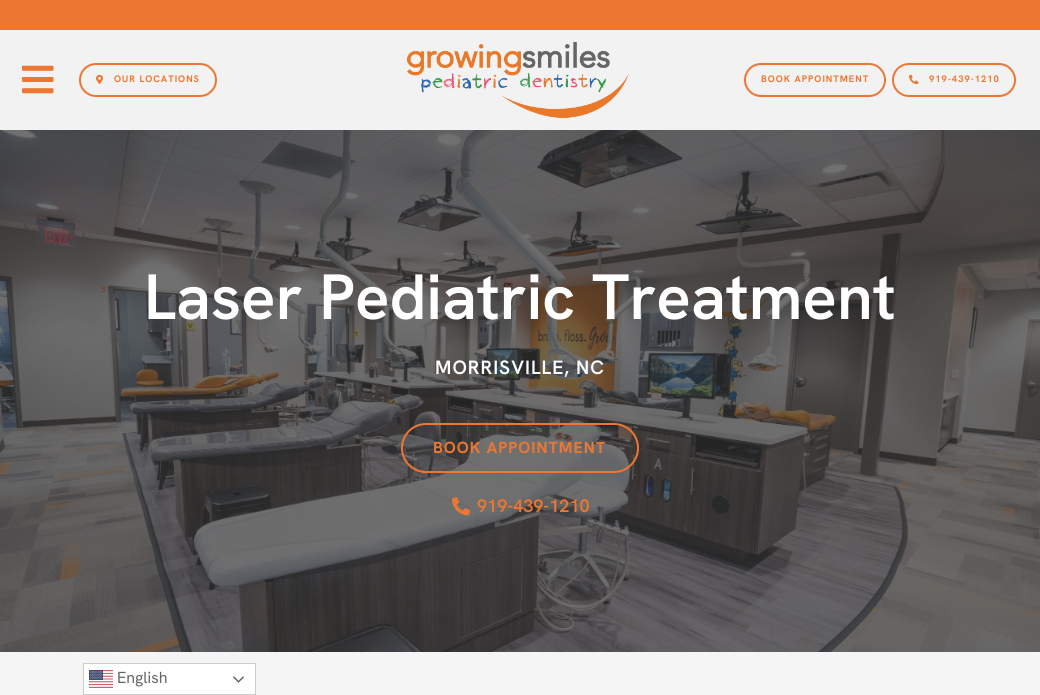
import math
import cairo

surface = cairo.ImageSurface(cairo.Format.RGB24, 1040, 695)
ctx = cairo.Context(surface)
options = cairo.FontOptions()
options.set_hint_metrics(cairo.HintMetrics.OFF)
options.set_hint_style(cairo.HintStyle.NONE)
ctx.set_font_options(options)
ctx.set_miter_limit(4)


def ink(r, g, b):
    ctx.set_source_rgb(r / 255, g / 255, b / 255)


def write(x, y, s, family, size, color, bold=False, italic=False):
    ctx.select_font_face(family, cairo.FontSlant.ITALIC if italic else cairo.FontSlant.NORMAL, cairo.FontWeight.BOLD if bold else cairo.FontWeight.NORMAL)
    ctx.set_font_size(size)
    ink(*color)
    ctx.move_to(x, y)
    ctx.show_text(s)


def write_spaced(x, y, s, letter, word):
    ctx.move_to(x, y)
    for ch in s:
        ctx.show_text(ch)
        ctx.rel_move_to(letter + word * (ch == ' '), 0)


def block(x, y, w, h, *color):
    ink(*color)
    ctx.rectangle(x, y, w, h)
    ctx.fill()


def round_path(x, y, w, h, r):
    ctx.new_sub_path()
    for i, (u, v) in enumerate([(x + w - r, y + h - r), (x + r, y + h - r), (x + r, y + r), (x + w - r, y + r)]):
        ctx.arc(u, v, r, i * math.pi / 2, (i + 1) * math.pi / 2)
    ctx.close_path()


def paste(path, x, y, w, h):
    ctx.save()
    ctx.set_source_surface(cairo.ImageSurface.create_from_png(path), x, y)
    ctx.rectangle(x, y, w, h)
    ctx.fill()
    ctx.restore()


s1 = dict(family="Hanken Grotesk SemiBold", size=64, color=(255, 255, 255))
s2 = dict(family="Hanken Grotesk SemiBold", size=18, color=(237, 119, 50))
s3 = dict(family="Hanken Grotesk", size=16, color=(102, 102, 102))

ink(245, 245, 245)
ctx.paint()
block(0, 0, 1040, 30, 237, 119, 50)
block(0, 30, 1040, 100, 242, 242, 242)
paste("pic1.png", 22, 65, 32, 29)
round_path(80, 64, 136, 32, 16)
ink(237, 119, 50)
ctx.stroke()
paste("pic2.png", 96, 74, 7, 11)
ctx.select_font_face("Hanken Grotesk", cairo.FontSlant.NORMAL, cairo.FontWeight.BOLD)
ctx.set_font_size(9.4)
write_spaced(114, 82, "OUR LOCATIONS", 1, 0)
paste("pic3.png", 406, 41, 223, 78)
round_path(745, 64, 140, 32, 16)
ctx.stroke()
write_spaced(761, 82, "BOOK APPOINTMENT", 1, 0)
round_path(893, 64, 122, 32, 16)
ctx.stroke()
paste("pic4.png", 909, 74, 10, 11)
write_spaced(929, 82, "919-439-1210", 1, 0)
paste("pic5.png", 0, 130, 1040, 522)
write(144, 319, "Laser Pediatric Treatment", **s1)
ctx.set_font_size(19.25)
write_spaced(435, 374, "MORRISVILLE, NC", 1, 0)
round_path(402, 424, 236, 48, 24)
ink(237, 119, 50)
ctx.stroke()
ctx.select_font_face("Hanken Grotesk", cairo.FontSlant.NORMAL, cairo.FontWeight.BOLD)
ctx.set_font_size(16)
write_spaced(433, 453, "BOOK APPOINTMENT", 1, 0)
paste("pic6.png", 452, 497, 18, 19)
write(477, 512, "919-439-1210", **s2)
ink(255, 255, 255)
ctx.rectangle(83.5, 663.5, 172, 31)
ctx.fill_preserve()
ink(204, 204, 204)
ctx.set_line_width(1)
ctx.stroke()
paste("pic7.png", 89, 670, 24, 18)
write(117, 683, "English", **s3)
paste("pic8.png", 233, 676, 11, 7)
surface.write_to_png("screenshot.png")
